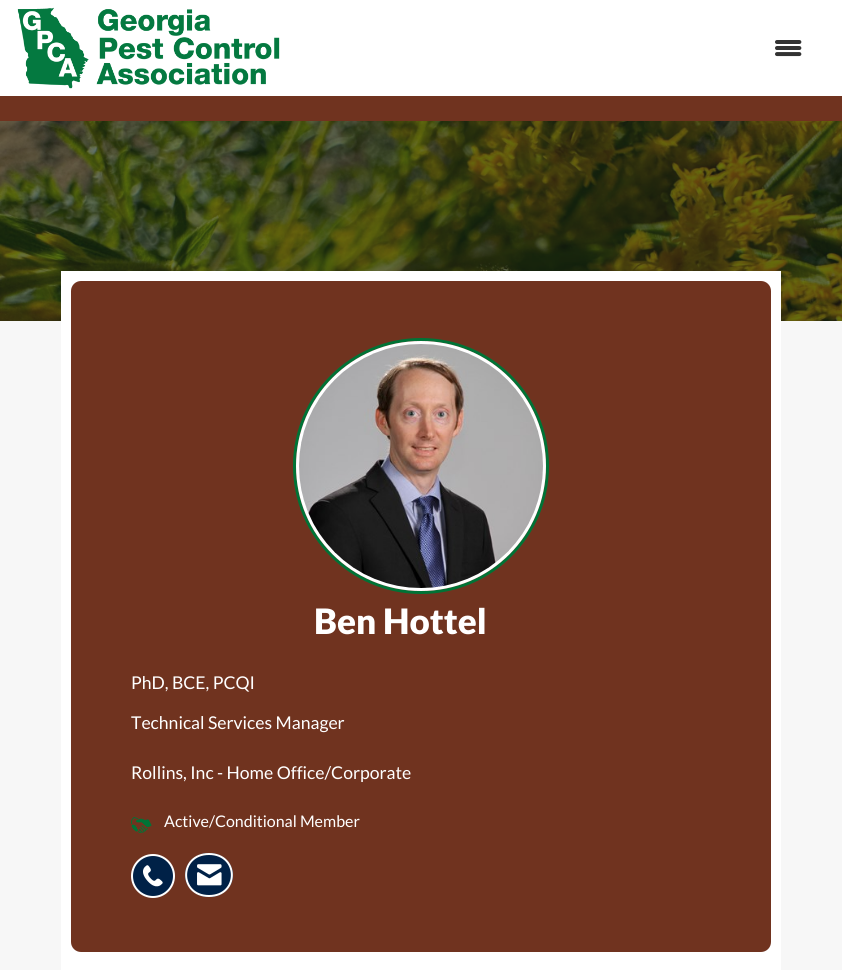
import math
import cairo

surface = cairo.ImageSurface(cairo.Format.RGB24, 842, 970)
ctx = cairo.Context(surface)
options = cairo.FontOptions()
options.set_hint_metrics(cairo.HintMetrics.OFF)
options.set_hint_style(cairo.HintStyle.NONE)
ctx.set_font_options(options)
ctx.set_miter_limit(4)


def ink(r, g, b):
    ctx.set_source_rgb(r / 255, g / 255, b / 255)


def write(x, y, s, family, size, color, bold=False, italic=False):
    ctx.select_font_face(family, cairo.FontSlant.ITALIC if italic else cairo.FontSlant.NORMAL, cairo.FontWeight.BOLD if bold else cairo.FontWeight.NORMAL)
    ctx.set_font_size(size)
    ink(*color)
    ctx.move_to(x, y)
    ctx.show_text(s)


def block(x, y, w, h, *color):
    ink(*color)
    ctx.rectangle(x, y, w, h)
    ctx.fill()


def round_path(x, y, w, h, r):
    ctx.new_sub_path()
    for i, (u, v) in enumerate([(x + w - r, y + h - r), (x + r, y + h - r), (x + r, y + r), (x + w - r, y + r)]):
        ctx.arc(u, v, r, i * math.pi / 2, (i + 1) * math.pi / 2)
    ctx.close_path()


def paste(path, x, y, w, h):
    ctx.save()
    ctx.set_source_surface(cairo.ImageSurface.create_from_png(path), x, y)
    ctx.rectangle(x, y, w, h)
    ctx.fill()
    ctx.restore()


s1 = dict(family="Lato Black", size=35, color=(255, 255, 255))
s2 = dict(family="Lato", size=17.6, color=(255, 255, 255))
s3 = dict(family="Lato", size=16, color=(255, 255, 255))

ink(247, 247, 247)
ctx.paint()
block(0, 0, 842, 96, 255, 255, 255)
paste("pic1.png", 17, 7, 263, 82)
paste("pic2.png", 775, 40, 27, 17)
block(0, 96, 842, 25, 112, 51, 31)
paste("pic3.png", 0, 121, 842, 200)
block(61, 271, 720, 699, 255, 255, 255)
ink(112, 51, 31)
round_path(71, 281, 700, 671, 10)
ctx.fill()
ctx.arc(421, 466, 126.5, 0, 2 * math.pi)
ink(0, 115, 54)
ctx.set_line_width(3)
ctx.stroke()
ink(255, 255, 255)
ctx.arc(421, 466, 123.5, 0, 2 * math.pi)
ctx.fill_preserve()
ctx.stroke()
paste("pic4.png", 299, 344, 244, 244)
write(314, 634, "Ben Hottel", **s1)
write(131, 689, "PhD, BCE, PCQI", **s2)
write(131, 729, "Technical Services Manager", **s2)
write(131, 779, "Rollins, Inc - Home Office/Corporate", **s2)
paste("pic5.png", 131, 817, 21, 16)
write(164, 827, "Active/Conditional Member", **s3)
ink(0, 33, 71)
ctx.new_path()
ctx.arc(153, 876, 21, 0, 2 * math.pi)
ctx.fill_preserve()
ink(255, 255, 255)
ctx.set_line_width(2)
ctx.stroke()
paste("pic6.png", 143, 865, 20, 22)
ink(0, 33, 71)
ctx.new_path()
ctx.move_to(209, 853)
ctx.curve_to(222.5, 853, 233, 863, 233, 875)
ctx.curve_to(233, 887, 222.5, 897, 209, 897)
ctx.curve_to(195.5, 897, 185, 887, 185, 875)
ctx.curve_to(185, 863, 195.5, 853, 209, 853)
ctx.close_path()
ctx.fill()
ctx.new_path()
ctx.move_to(209, 854)
ctx.curve_to(239.5, 854, 239.5, 896, 209, 896)
ctx.curve_to(178.5, 896, 178.5, 854, 209, 854)
ctx.close_path()
ink(255, 255, 255)
ctx.stroke()
paste("pic7.png", 197, 864, 25, 22)
surface.write_to_png("screenshot.png")
